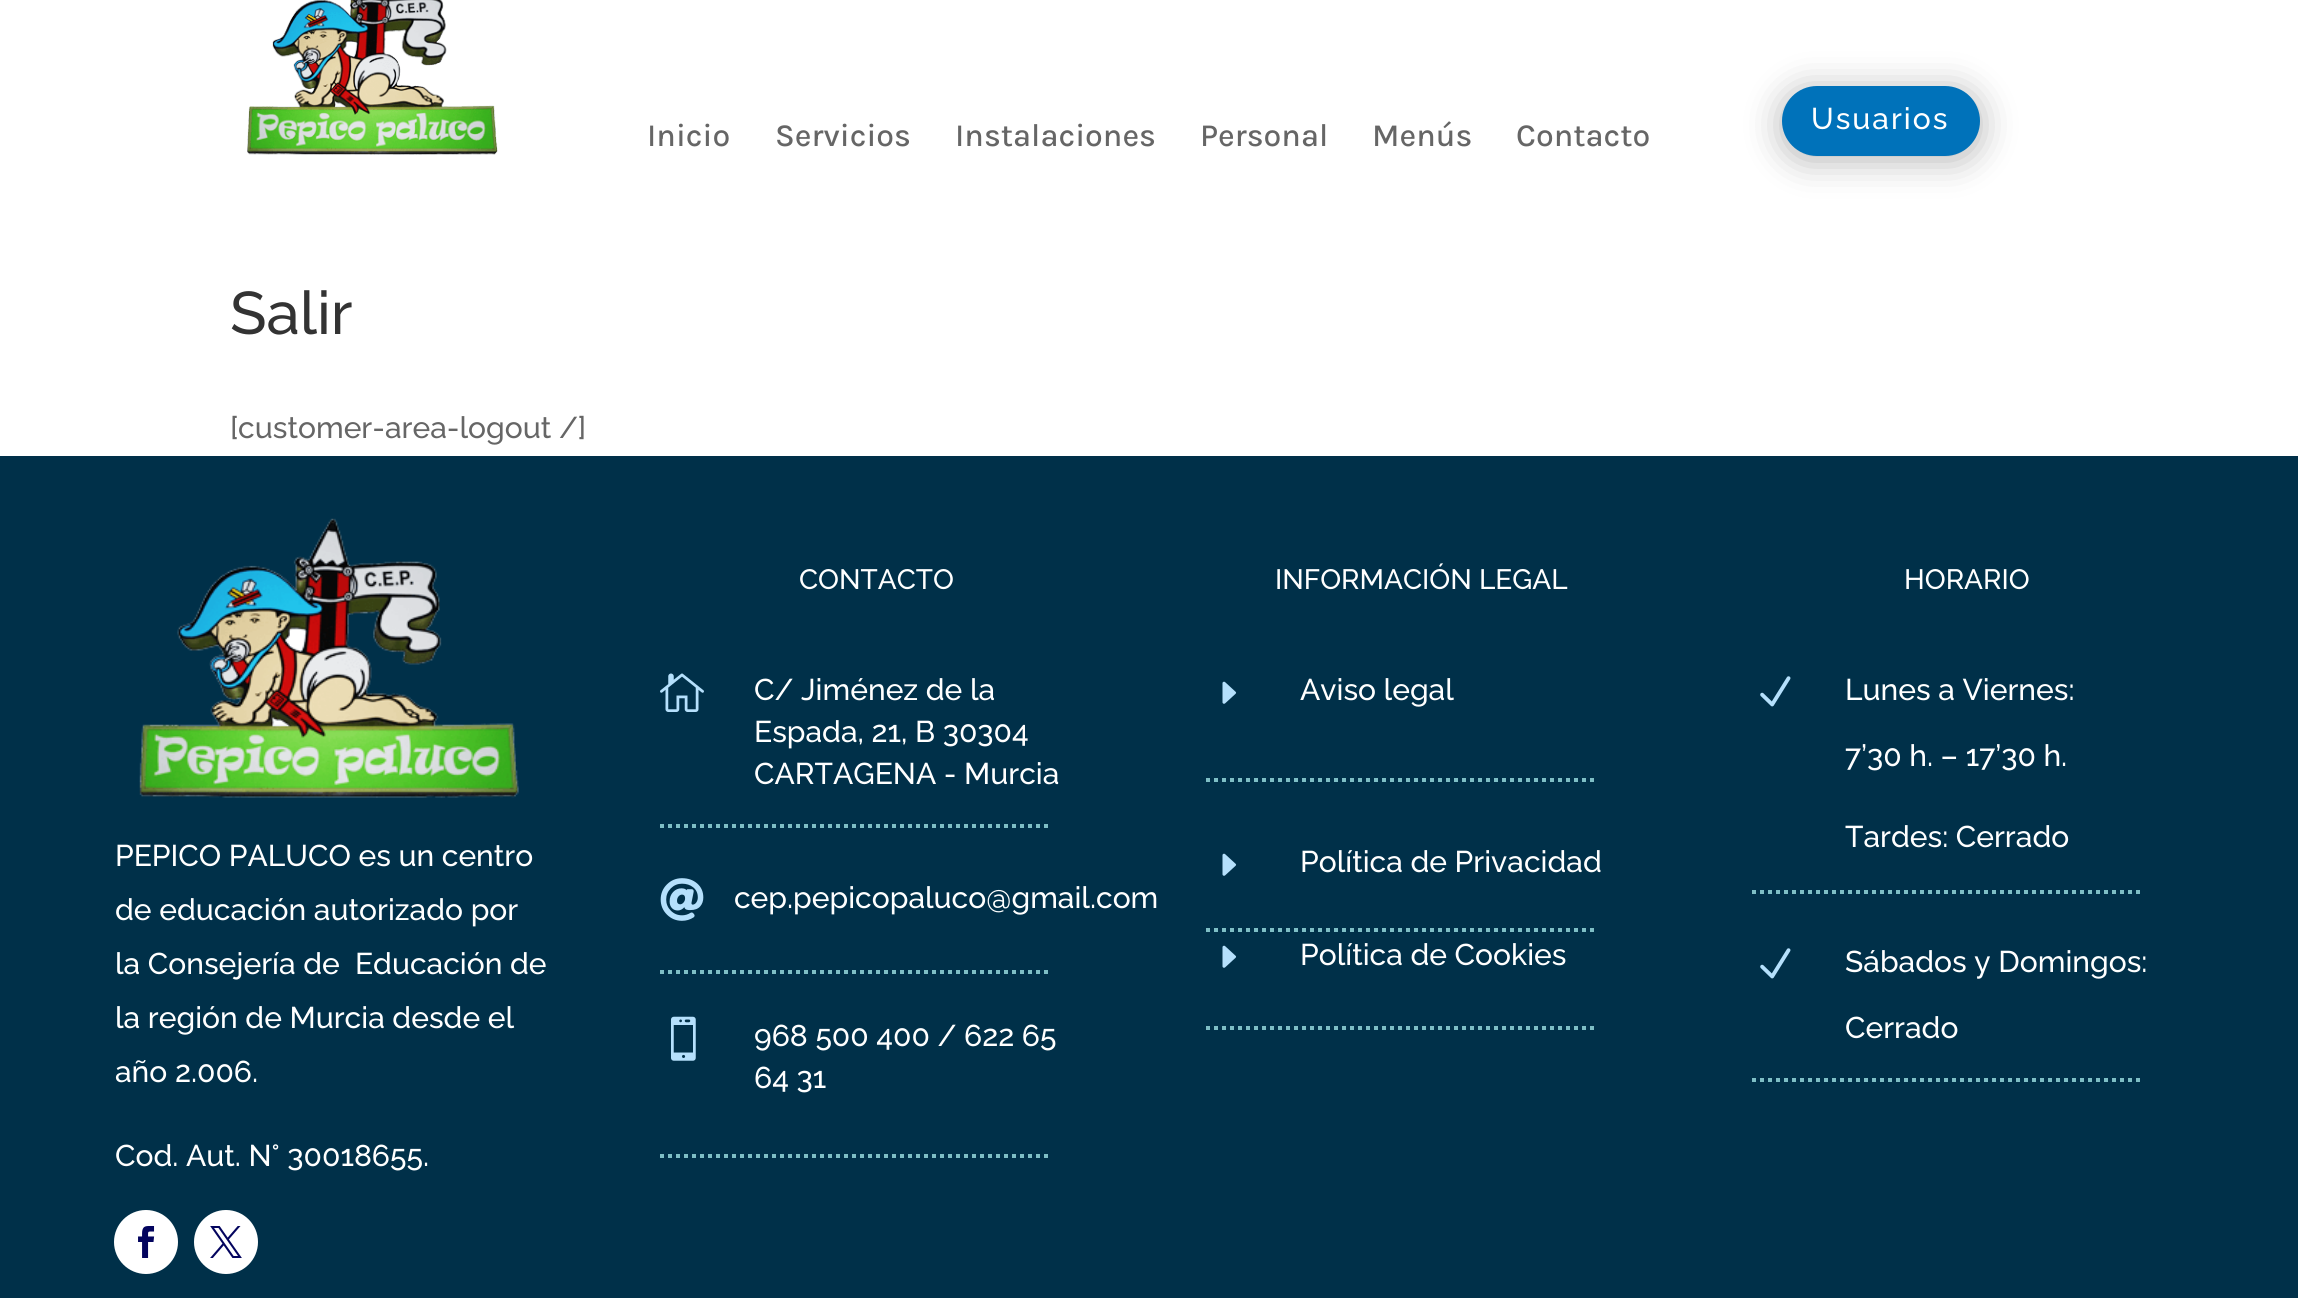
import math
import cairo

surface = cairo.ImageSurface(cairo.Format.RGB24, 2298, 1298)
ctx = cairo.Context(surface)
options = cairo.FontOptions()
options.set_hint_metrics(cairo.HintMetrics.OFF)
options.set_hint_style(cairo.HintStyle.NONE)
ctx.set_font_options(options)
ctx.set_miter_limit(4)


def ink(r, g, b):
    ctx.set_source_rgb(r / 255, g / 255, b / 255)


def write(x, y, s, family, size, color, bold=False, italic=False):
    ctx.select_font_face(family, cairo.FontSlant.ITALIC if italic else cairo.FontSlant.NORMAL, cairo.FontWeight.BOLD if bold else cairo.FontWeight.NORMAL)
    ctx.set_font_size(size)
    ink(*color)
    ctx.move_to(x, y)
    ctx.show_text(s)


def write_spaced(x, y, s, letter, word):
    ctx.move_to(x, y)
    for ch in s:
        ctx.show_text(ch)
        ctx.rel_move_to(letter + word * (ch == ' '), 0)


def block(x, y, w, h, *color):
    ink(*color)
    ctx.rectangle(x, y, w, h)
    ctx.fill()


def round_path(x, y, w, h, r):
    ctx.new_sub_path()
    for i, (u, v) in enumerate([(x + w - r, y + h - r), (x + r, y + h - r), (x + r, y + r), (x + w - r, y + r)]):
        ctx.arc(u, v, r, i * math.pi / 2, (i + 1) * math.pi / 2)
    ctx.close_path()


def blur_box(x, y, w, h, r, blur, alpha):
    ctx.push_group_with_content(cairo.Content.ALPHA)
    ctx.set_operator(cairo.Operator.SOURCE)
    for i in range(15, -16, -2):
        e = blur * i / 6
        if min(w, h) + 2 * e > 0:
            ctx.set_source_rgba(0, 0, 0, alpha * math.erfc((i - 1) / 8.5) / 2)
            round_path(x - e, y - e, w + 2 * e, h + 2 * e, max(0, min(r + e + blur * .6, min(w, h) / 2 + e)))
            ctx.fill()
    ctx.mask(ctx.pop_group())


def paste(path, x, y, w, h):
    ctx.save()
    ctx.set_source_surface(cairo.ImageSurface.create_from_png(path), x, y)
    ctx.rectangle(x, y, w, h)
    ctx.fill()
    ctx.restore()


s1 = dict(family="Karla Medium", size=32, color=(102, 102, 102))
s2 = dict(family="Raleway Thin", size=60, color=(51, 51, 51))
s3 = dict(family="Raleway Thin", size=30, color=(102, 102, 102))
s4 = dict(family="Raleway Thin", size=30, color=(255, 255, 255))
s5 = dict(family="Raleway Thin", size=28, color=(255, 255, 255))

ink(255, 255, 255)
ctx.paint()
paste("pic1.png", 247, 0, 251, 155)
ink(0, 0, 0)
blur_box(1782, 90, 198, 70, 35, 18, 0.3)
ink(0, 114, 186)
round_path(1782, 86, 198, 70, 35)
ctx.fill()
ctx.select_font_face("Raleway Thin")
ctx.set_font_size(30)
ink(255, 255, 255)
write_spaced(1811, 129, "Usuarios", 2, 0)
write(647, 146, "Inicio", **s1)
write(775, 146, "Servicios", **s1)
write(955, 146, "Instalaciones", **s1)
write(1200, 146, "Personal", **s1)
write(1372, 146, "Menús", **s1)
write(1516, 146, "Contacto", **s1)
write(230, 334, "Salir", **s2)
write(230, 438, "[customer-area-logout /]", **s3)
block(0, 456, 2298, 842, 0, 48, 73)
paste("pic2.png", 139, 518, 380, 280)
write(115, 866, "PEPICO PALUCO es un centro", **s4)
write(115, 920, "de educación autorizado por", **s4)
write(115, 974, "la Consejería de  Educación de", **s4)
write(115, 1028, "la región de Murcia desde el", **s4)
write(115, 1082, "año 2.006.", **s4)
write(115, 1166, "Cod. Aut. N° 30018655.", **s4)
ctx.new_path()
ctx.arc(146, 1242, 32, 0, 2 * math.pi)
ctx.fill()
paste("pic3.png", 138, 1226, 17, 32)
ctx.arc(226, 1242, 32, 0, 2 * math.pi)
ctx.fill()
paste("pic4.png", 210, 1226, 32, 32)
write(799, 589, "CONTACTO", **s5)
paste("pic5.png", 660, 673, 44, 39)
write(754, 700, "C/ Jiménez de la", **s4)
write(754, 742, "Espada, 21, B 30304", **s4)
write(754, 784, "CARTAGENA - Murcia", **s4)
ctx.new_path()
ctx.move_to(660, 826)
ctx.line_to(1048, 826)
ink(126, 190, 197)
ctx.set_line_width(4)
ctx.set_dash([4, 4])
ctx.stroke()
paste("pic6.png", 660, 878, 44, 43)
write(734, 908, "cep.pepicopaluco@gmail.com", **s4)
ctx.new_path()
ctx.move_to(660, 972)
ctx.line_to(1048, 972)
ink(126, 190, 197)
ctx.stroke()
paste("pic7.png", 671, 1016, 25, 45)
write(754, 1046, "968 500 400 / 622 65", **s4)
write(754, 1088, "64 31", **s4)
ctx.new_path()
ctx.move_to(660, 1156)
ctx.line_to(1048, 1156)
ink(126, 190, 197)
ctx.stroke()
write(1275, 589, "INFORMACIÓN LEGAL", **s5)
paste("pic8.png", 1222, 681, 15, 23)
write(1300, 700, "Aviso legal", **s4)
ctx.new_path()
ctx.move_to(1206, 780)
ctx.line_to(1594, 780)
ink(126, 190, 197)
ctx.stroke()
paste("pic8.png", 1222, 853, 15, 23)
write(1300, 872, "Política de Privacidad", **s4)
ctx.new_path()
ctx.move_to(1206, 930)
ctx.line_to(1594, 930)
ink(126, 190, 197)
ctx.stroke()
paste("pic8.png", 1222, 945, 15, 23)
write(1300, 965, "Política de Cookies", **s4)
ctx.new_path()
ctx.move_to(1206, 1028)
ctx.line_to(1594, 1028)
ink(126, 190, 197)
ctx.stroke()
write(1904, 589, "HORARIO", **s5)
paste("pic9.png", 1760, 676, 31, 31)
write(1845, 700, "Lunes a Viernes:", **s4)
write(1845, 766, "7’30 h. – 17’30 h.", **s4)
write(1845, 847, "Tardes: Cerrado", **s4)
ctx.new_path()
ctx.move_to(1752, 892)
ctx.line_to(2140, 892)
ink(126, 190, 197)
ctx.stroke()
paste("pic9.png", 1760, 948, 31, 31)
write(1845, 972, "Sábados y Domingos:", **s4)
write(1845, 1038, "Cerrado", **s4)
ctx.new_path()
ctx.move_to(1752, 1080)
ctx.line_to(2140, 1080)
ink(126, 190, 197)
ctx.stroke()
surface.write_to_png("screenshot.png")
